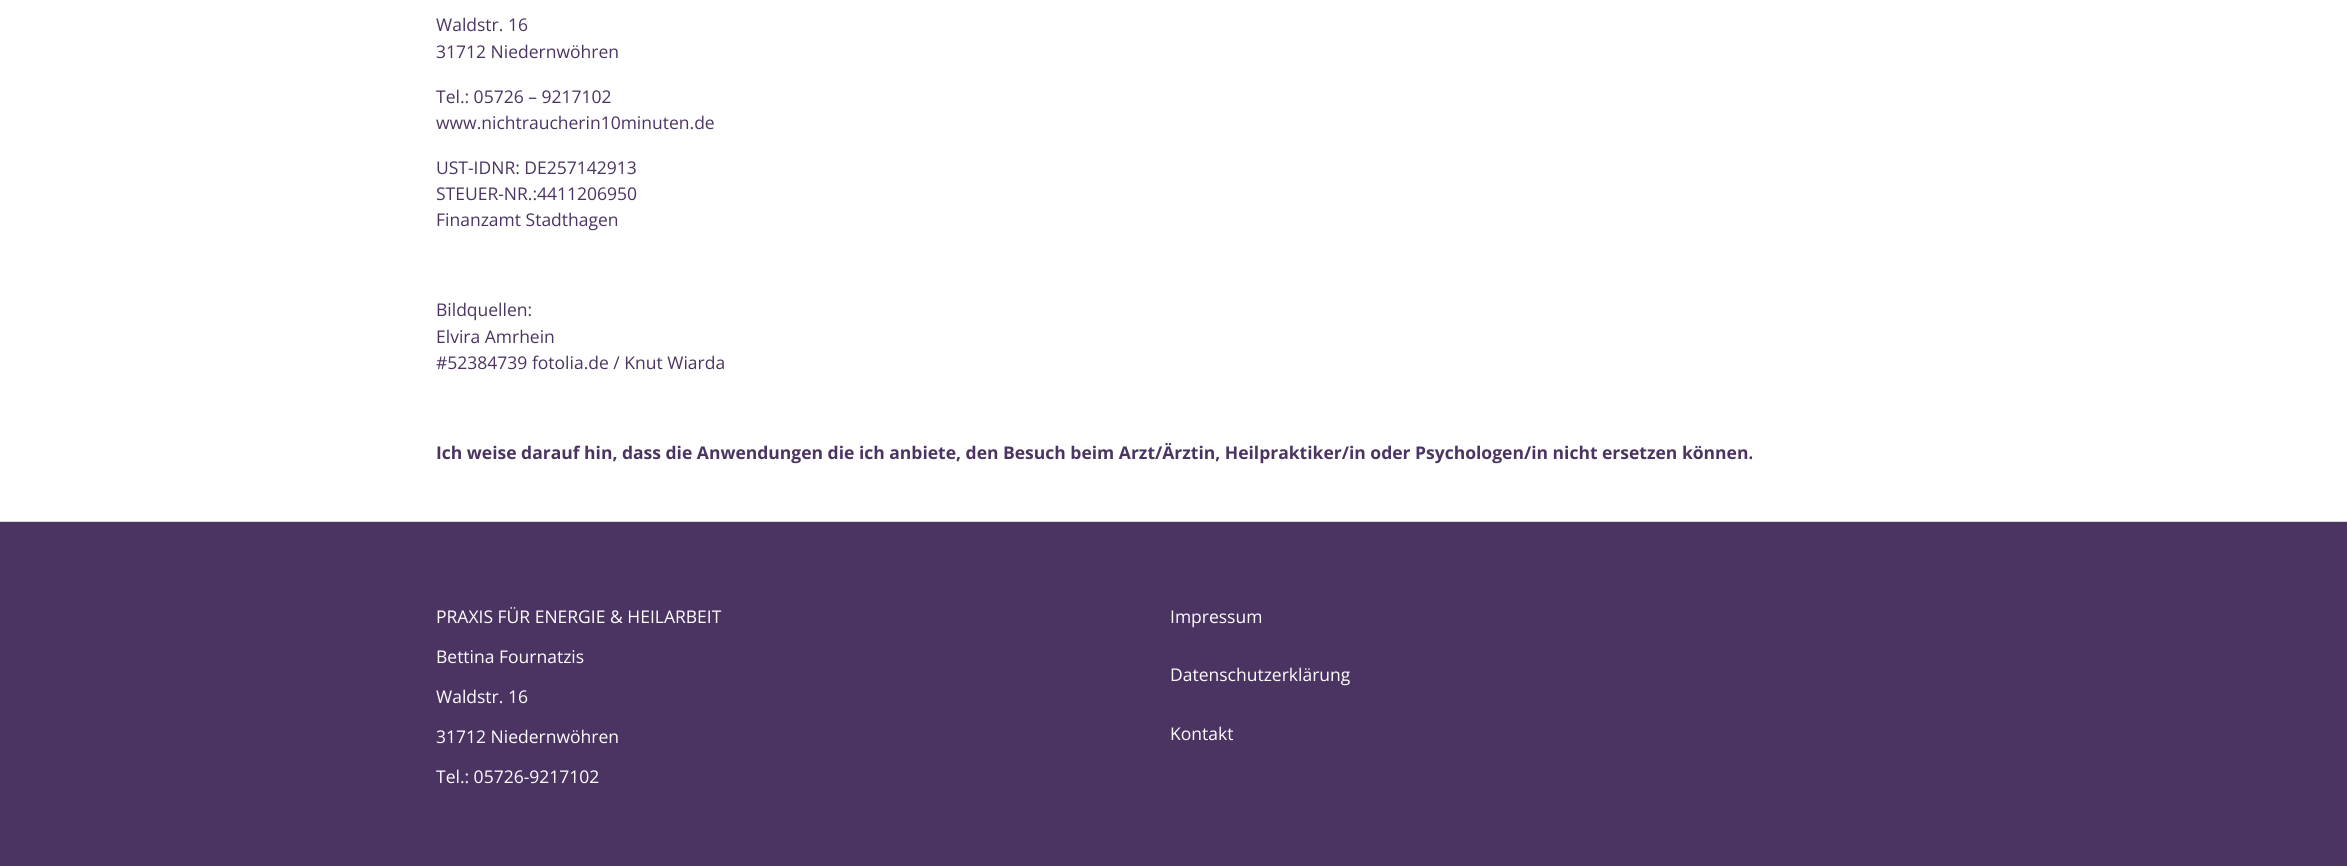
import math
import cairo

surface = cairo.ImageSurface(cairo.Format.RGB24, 2347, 866)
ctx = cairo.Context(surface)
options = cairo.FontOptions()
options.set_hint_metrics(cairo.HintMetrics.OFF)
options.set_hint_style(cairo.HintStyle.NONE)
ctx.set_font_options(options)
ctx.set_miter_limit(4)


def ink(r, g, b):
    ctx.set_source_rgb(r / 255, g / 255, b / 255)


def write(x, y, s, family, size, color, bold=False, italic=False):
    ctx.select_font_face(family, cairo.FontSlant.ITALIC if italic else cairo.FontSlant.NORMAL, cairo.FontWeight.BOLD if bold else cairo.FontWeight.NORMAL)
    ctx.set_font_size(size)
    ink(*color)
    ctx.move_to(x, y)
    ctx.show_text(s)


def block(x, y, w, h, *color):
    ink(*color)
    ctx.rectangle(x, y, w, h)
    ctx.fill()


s1 = dict(family="Open Sans", size=17.5, color=(75, 52, 98))
s2 = dict(family="Open Sans", size=17.5, color=(75, 52, 98), bold=True)
s3 = dict(family="Open Sans", size=17.5, color=(255, 255, 255))

ink(255, 255, 255)
ctx.paint()
write(436, 31, "Waldstr. 16", **s1)
write(436, 58, "31712 Niedernwöhren", **s1)
write(436, 103, "Tel.: 05726 – 9217102", **s1)
write(436, 129, "www.nichtraucherin10minuten.de", **s1)
write(436, 174, "UST-IDNR: DE257142913", **s1)
write(436, 200, "STEUER-NR.:4411206950", **s1)
write(436, 226, "Finanzamt Stadthagen", **s1)
write(436, 316, "Bildquellen:", **s1)
write(436, 343, "Elvira Amrhein", **s1)
write(436, 369, "#52384739 fotolia.de / Knut Wiarda", **s1)
write(436, 459, "Ich weise darauf hin, dass die Anwendungen die ich anbiete, den Besuch beim Arzt/Ärztin, Heilpraktiker/in oder Psychologen/in nicht ersetzen können.", **s2)
block(0, 522, 2347, 344, 75, 52, 98)
block(0, 521, 2347, 1, 215, 215, 215)
write(436, 623, "PRAXIS FÜR ENERGIE & HEILARBEIT", **s3)
write(436, 663, "Bettina Fournatzis", **s3)
write(436, 703, "Waldstr. 16", **s3)
write(436, 743, "31712 Niedernwöhren", **s3)
write(436, 783, "Tel.: 05726-9217102", **s3)
write(1170, 623, "Impressum", **s3)
write(1170, 681, "Datenschutzerklärung", **s3)
write(1170, 740, "Kontakt", **s3)
surface.write_to_png("screenshot.png")
